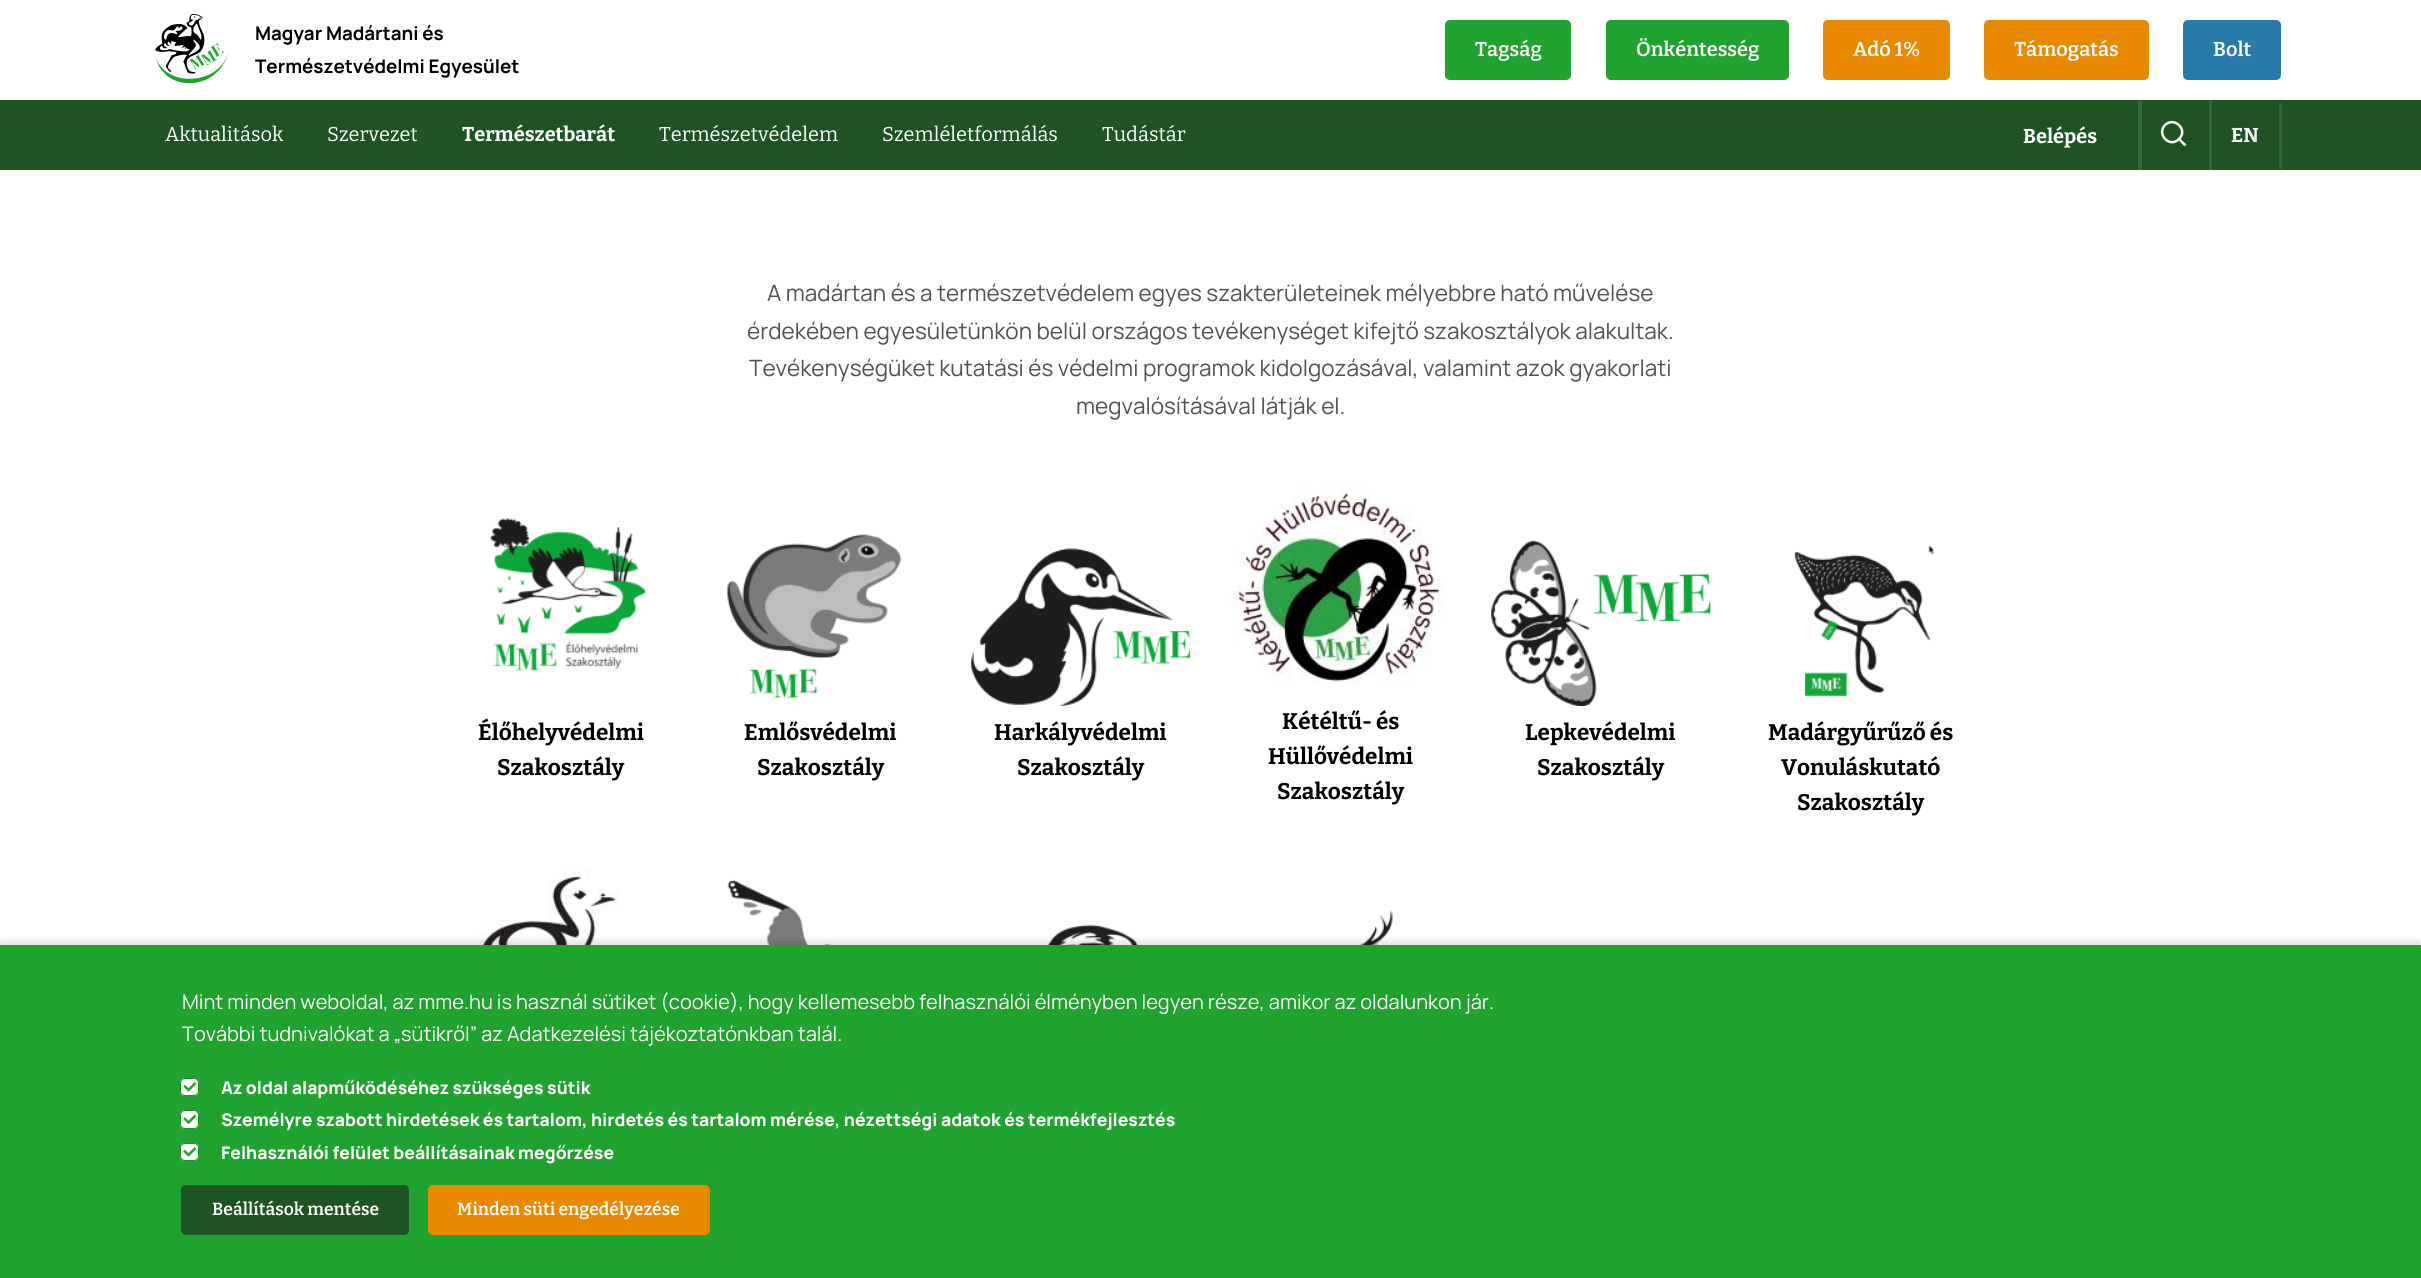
import math
import cairo

surface = cairo.ImageSurface(cairo.Format.RGB24, 2421, 1278)
ctx = cairo.Context(surface)
options = cairo.FontOptions()
options.set_hint_metrics(cairo.HintMetrics.OFF)
options.set_hint_style(cairo.HintStyle.NONE)
ctx.set_font_options(options)
ctx.set_miter_limit(4)


def ink(r, g, b):
    ctx.set_source_rgb(r / 255, g / 255, b / 255)


def write(x, y, s, family, size, color, bold=False, italic=False):
    ctx.select_font_face(family, cairo.FontSlant.ITALIC if italic else cairo.FontSlant.NORMAL, cairo.FontWeight.BOLD if bold else cairo.FontWeight.NORMAL)
    ctx.set_font_size(size)
    ink(*color)
    ctx.move_to(x, y)
    ctx.show_text(s)


def block(x, y, w, h, *color):
    ink(*color)
    ctx.rectangle(x, y, w, h)
    ctx.fill()


def round_path(x, y, w, h, r):
    ctx.new_sub_path()
    for i, (u, v) in enumerate([(x + w - r, y + h - r), (x + r, y + h - r), (x + r, y + r), (x + w - r, y + r)]):
        ctx.arc(u, v, r, i * math.pi / 2, (i + 1) * math.pi / 2)
    ctx.close_path()


def blur_box(x, y, w, h, r, blur, alpha):
    ctx.push_group_with_content(cairo.Content.ALPHA)
    ctx.set_operator(cairo.Operator.SOURCE)
    for i in range(15, -16, -2):
        e = blur * i / 6
        if min(w, h) + 2 * e > 0:
            ctx.set_source_rgba(0, 0, 0, alpha * math.erfc((i - 1) / 8.5) / 2)
            round_path(x - e, y - e, w + 2 * e, h + 2 * e, max(0, min(r + e + blur * .6, min(w, h) / 2 + e)))
            ctx.fill()
    ctx.mask(ctx.pop_group())


def paste(path, x, y, w, h):
    ctx.save()
    ctx.set_source_surface(cairo.ImageSurface.create_from_png(path), x, y)
    ctx.rectangle(x, y, w, h)
    ctx.fill()
    ctx.restore()


s1 = dict(family="Manrope", size=18.75, color=(0, 0, 0), bold=True)
s2 = dict(family="Bitter SemiBold", size=20, color=(255, 255, 255))
s3 = dict(family="Bitter", size=20, color=(255, 255, 255))
s4 = dict(family="Bitter", size=20, color=(255, 255, 255), bold=True)
s5 = dict(family="Manrope", size=22.5, color=(81, 81, 81))
s6 = dict(family="Bitter", size=22.5, color=(0, 0, 0), bold=True)
s7 = dict(family="Manrope", size=20, color=(255, 255, 255))
s8 = dict(family="Manrope ExtraBold", size=17.5, color=(255, 255, 255))
s9 = dict(family="Bitter SemiBold", size=17.5, color=(255, 255, 255))

ink(255, 255, 255)
ctx.paint()
paste("pic1.png", 155, 13, 73, 71)
write(255, 40, "Magyar Madártani és", **s1)
write(255, 73, "Természetvédelmi Egyesület", **s1)
ink(31, 162, 46)
round_path(1445, 20, 126, 60, 5)
ctx.fill()
write(1475, 56, "Tagság", **s2)
ink(31, 162, 46)
round_path(1606, 20, 183, 60, 5)
ctx.fill()
write(1636, 56, "Önkéntesség", **s2)
ink(233, 137, 0)
round_path(1823, 20, 127, 60, 5)
ctx.fill()
write(1853, 56, "Adó 1%", **s2)
ink(233, 137, 0)
round_path(1984, 20, 165, 60, 5)
ctx.fill()
write(2014, 56, "Támogatás", **s2)
ink(39, 122, 169)
round_path(2183, 20, 98, 60, 5)
ctx.fill()
write(2213, 56, "Bolt", **s2)
block(0, 100, 2421, 70, 30, 84, 36)
write(165, 141, "Aktualitások", **s3)
write(327, 141, "Szervezet", **s3)
write(462, 141, "Természetbarát", **s4)
write(659, 141, "Természetvédelem", **s3)
write(882, 141, "Szemléletformálás", **s3)
write(1102, 141, "Tudástár", **s3)
write(2023, 143, "Belépés", **s4)
block(2138, 100, 4, 70, 53, 101, 58)
block(2209, 100, 3, 70, 53, 101, 58)
ctx.new_path()
ctx.move_to(2165, 125)
ctx.curve_to(2174.5, 116, 2188.5, 130, 2179, 139)
ctx.curve_to(2170, 148.5, 2156, 134.5, 2165, 125)
ctx.close_path()
ink(255, 255, 255)
ctx.set_line_width(2.5)
ctx.stroke()
ctx.new_path()
ctx.move_to(2177.5, 139)
ctx.line_to(2179, 137.5)
ctx.line_to(2186.5, 144.5)
ctx.line_to(2184.5, 146.5)
ctx.close_path()
ctx.fill()
block(2279, 103, 3, 66, 53, 101, 58)
write(2231, 142, "EN", **s4)
write(767, 301, "A madártan és a természetvédelem egyes szakterületeinek mélyebbre ható művelése", **s5)
write(747, 339, "érdekében egyesületünkön belül országos tevékenységet kifejtő szakosztályok alakultak.", **s5)
write(749, 376, "Tevékenységüket kutatási és védelmi programok kidolgozásával, valamint azok gyakorlati", **s5)
write(1076, 414, "megvalósításával látják el.", **s5)
paste("pic2.png", 490, 518, 157, 154)
write(478, 740, "Élőhelyvédelmi", **s6)
write(497, 775, "Szakosztály", **s6)
paste("pic3.png", 727, 534, 175, 165)
write(744, 740, "Emlősvédelmi", **s6)
write(757, 775, "Szakosztály", **s6)
paste("pic4.png", 971, 548, 220, 158)
write(994, 740, "Harkályvédelmi", **s6)
write(1017, 775, "Szakosztály", **s6)
paste("pic5.png", 1231, 486, 211, 200)
write(1282, 729, "Kétéltű- és", **s6)
write(1268, 764, "Hüllővédelmi", **s6)
write(1277, 799, "Szakosztály", **s6)
paste("pic6.png", 1491, 540, 221, 166)
write(1525, 740, "Lepkevédelmi", **s6)
write(1537, 775, "Szakosztály", **s6)
paste("pic7.png", 1794, 545, 141, 152)
write(1768, 740, "Madárgyűrűző és", **s6)
write(1781, 775, "Vonuláskutató", **s6)
write(1797, 810, "Szakosztály", **s6)
paste("pic8.png", 479, 870, 170, 75)
paste("pic9.png", 727, 879, 192, 66)
paste("pic10.png", 971, 924, 173, 21)
paste("pic11.png", 1264, 910, 144, 35)
ink(0, 0, 0)
blur_box(0, 940, 2421, 334, 0, 2.5, 0.1)
block(0, 945, 2421, 333, 31, 162, 46)
write(182, 1009, "Mint minden weboldal, az mme.hu is használ sütiket (cookie), hogy kellemesebb felhasználói élményben legyen része, amikor az oldalunkon jár.", **s7)
write(182, 1041, "További tudnivalókat a „sütikről” az Adatkezelési tájékoztatónkban talál.", **s7)
ink(0, 117, 255)
round_path(181, 1078, 17, 16, 2.5)
ctx.fill()
ink(255, 255, 255)
round_path(180, 1078, 19, 18, 5)
ctx.fill()
ctx.new_path()
ctx.move_to(184, 1085.5)
ctx.line_to(188.5, 1090)
ctx.line_to(195.5, 1083)
ink(31, 162, 46)
ctx.stroke()
round_path(180.5, 1078.5, 18, 17, 4.5)
ink(23, 147, 37)
ctx.set_line_width(1)
ctx.stroke()
write(221, 1094, "Az oldal alapműködéséhez szükséges sütik", **s8)
ink(0, 117, 255)
round_path(181, 1110, 17, 16, 2.5)
ctx.fill()
ink(255, 255, 255)
round_path(180, 1110, 19, 19, 5)
ctx.fill()
ctx.new_path()
ctx.move_to(184, 1118)
ctx.line_to(188.5, 1122.5)
ctx.line_to(195.5, 1115.5)
ink(31, 162, 46)
ctx.set_line_width(2.5)
ctx.stroke()
round_path(180.5, 1110.5, 18, 18, 4.5)
ink(23, 147, 37)
ctx.set_line_width(1)
ctx.stroke()
write(221, 1126, "Személyre szabott hirdetések és tartalom, hirdetés és tartalom mérése, nézettségi adatok és termékfejlesztés", **s8)
ink(0, 117, 255)
round_path(181, 1143, 17, 16, 2.5)
ctx.fill()
ink(255, 255, 255)
round_path(180, 1143, 19, 18, 5)
ctx.fill()
ctx.new_path()
ctx.move_to(184, 1150.5)
ctx.line_to(188.5, 1155)
ctx.line_to(195.5, 1148)
ink(31, 162, 46)
ctx.set_line_width(2.5)
ctx.stroke()
round_path(180.5, 1143.5, 18, 17, 4.5)
ink(23, 147, 37)
ctx.set_line_width(1)
ctx.stroke()
write(221, 1159, "Felhasználói felület beállításainak megőrzése", **s8)
ink(30, 84, 36)
round_path(181, 1185, 228, 50, 5)
ctx.fill()
write(212, 1215, "Beállítások mentése", **s9)
ink(233, 137, 0)
round_path(428, 1185, 282, 50, 5)
ctx.fill()
write(457, 1215, "Minden süti engedélyezése", **s9)
surface.write_to_png("screenshot.png")
